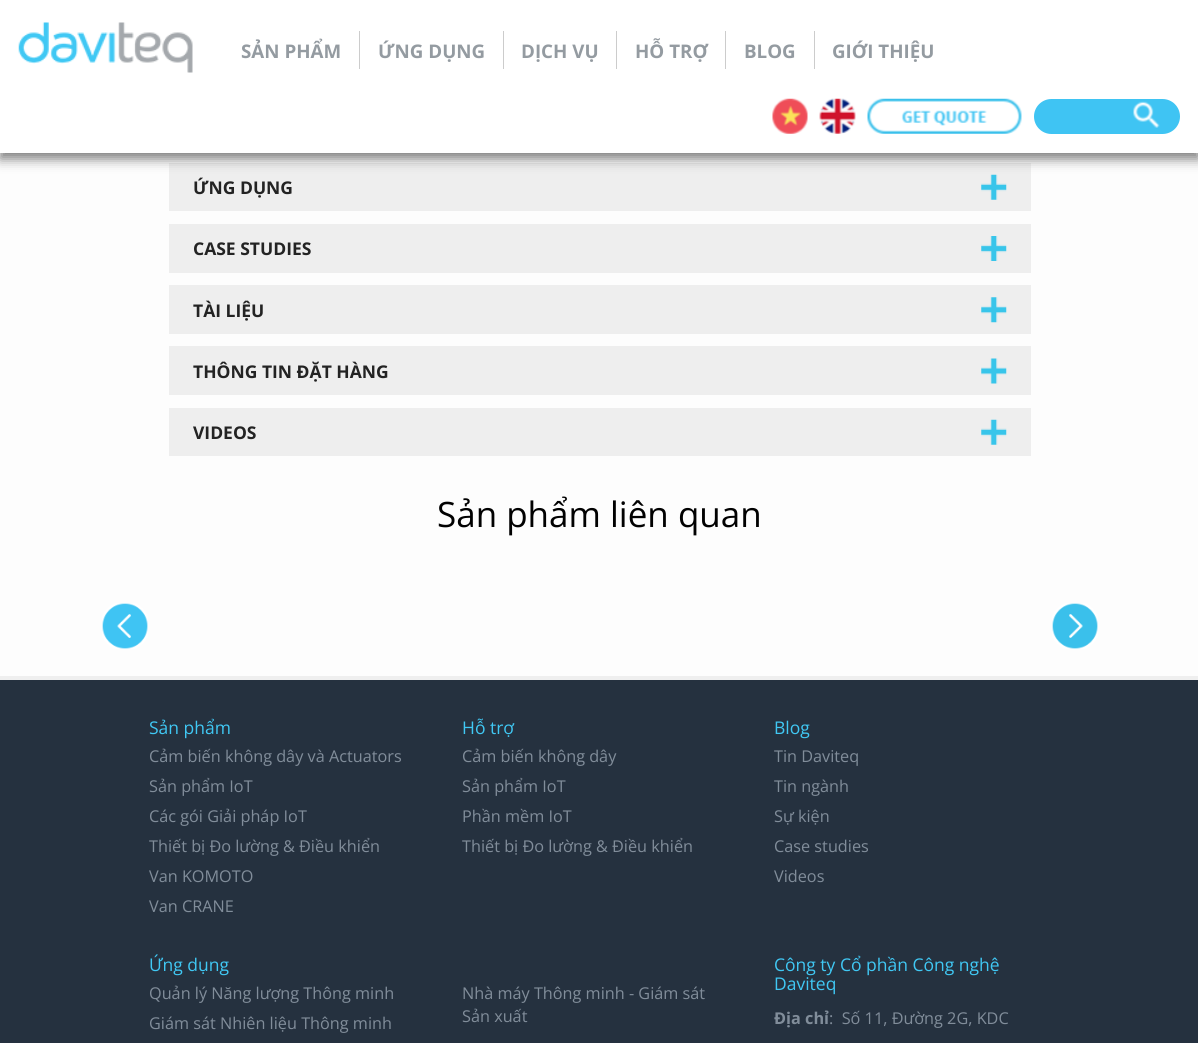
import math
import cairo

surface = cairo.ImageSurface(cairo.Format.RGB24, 1198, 1043)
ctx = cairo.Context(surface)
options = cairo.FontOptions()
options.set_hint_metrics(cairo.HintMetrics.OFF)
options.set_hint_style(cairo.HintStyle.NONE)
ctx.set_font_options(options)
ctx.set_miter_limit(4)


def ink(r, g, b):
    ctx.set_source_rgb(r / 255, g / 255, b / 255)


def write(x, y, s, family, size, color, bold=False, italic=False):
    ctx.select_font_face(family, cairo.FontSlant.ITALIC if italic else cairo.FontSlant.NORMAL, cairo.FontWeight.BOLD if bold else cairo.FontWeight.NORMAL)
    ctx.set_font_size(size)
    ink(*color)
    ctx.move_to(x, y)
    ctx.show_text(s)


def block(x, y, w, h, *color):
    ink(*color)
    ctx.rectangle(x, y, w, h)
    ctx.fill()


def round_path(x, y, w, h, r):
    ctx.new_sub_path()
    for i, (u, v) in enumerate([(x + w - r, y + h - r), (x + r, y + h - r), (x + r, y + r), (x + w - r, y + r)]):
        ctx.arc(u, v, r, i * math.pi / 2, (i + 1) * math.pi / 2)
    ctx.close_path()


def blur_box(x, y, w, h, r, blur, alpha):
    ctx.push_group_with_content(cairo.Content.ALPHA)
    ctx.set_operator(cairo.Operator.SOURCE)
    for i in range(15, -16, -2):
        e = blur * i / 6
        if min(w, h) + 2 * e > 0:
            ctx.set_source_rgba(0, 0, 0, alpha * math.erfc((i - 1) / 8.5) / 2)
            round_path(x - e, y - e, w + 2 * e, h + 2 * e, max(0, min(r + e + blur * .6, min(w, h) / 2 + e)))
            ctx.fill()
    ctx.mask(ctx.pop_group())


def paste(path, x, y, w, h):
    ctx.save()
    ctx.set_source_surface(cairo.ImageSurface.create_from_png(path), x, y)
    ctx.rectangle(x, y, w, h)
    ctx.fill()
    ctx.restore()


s1 = dict(family="Open Sans", size=18.75, color=(148, 155, 161), bold=True)
s2 = dict(family="Open Sans", size=17.5, color=(35, 35, 35), bold=True)
s3 = dict(family="Open Sans", size=35, color=(1, 1, 1))
s4 = dict(family="Open Sans", size=17.5, color=(64, 200, 244))
s5 = dict(family="Open Sans", size=16.25, color=(129, 141, 154))
s6 = dict(family="Open Sans", size=16.25, color=(129, 141, 154), bold=True)

ink(253, 253, 253)
ctx.paint()
block(169, 163, 862, 48, 238, 238, 238)
paste("pic6.png", 981, 174, 26, 26)
ink(126, 126, 126)
blur_box(0, 6, 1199, 153, 0, 6, 1)
block(0, 0, 1198, 153, 255, 255, 255)
paste("pic1.png", 18, 22, 175, 51)
block(359, 31, 1, 38, 204, 204, 204)
write(241, 58, "SẢN PHẨM", **s1)
block(503, 31, 1, 38, 204, 204, 204)
write(378, 58, "ỨNG DỤNG", **s1)
block(616, 31, 1, 38, 204, 204, 204)
write(521, 58, "DỊCH VỤ", **s1)
block(725, 31, 1, 38, 204, 204, 204)
write(635, 58, "HỖ TRỢ", **s1)
block(814, 31, 1, 38, 204, 204, 204)
write(744, 58, "BLOG", **s1)
write(832, 58, "GIỚI THIỆU", **s1)
paste("pic2.png", 772, 98, 36, 36)
paste("pic3.png", 819, 98, 37, 36)
paste("pic4.png", 867, 98, 155, 36)
ink(63, 196, 243)
round_path(1034, 99, 146, 35, 17.5)
ctx.fill()
paste("pic5.png", 1133, 101, 27, 27)
write(193, 194, "ỨNG DỤNG", **s2)
block(169, 224, 862, 49, 238, 238, 238)
paste("pic7.png", 981, 236, 26, 25)
write(193, 255, "CASE STUDIES", **s2)
block(169, 285, 862, 49, 238, 238, 238)
paste("pic8.png", 981, 297, 26, 26)
write(193, 317, "TÀI LIỆU", **s2)
block(169, 346, 862, 49, 238, 238, 238)
paste("pic9.png", 981, 358, 26, 26)
write(193, 378, "THÔNG TIN ĐẶT HÀNG", **s2)
block(169, 408, 862, 48, 238, 238, 238)
paste("pic6.png", 981, 419, 26, 26)
write(193, 439, "VIDEOS", **s2)
write(437, 527, "Sản phẩm liên quan", **s3)
paste("pic10.png", 102, 603, 46, 46)
paste("pic11.png", 1052, 603, 46, 46)
block(0, 680, 1198, 363, 37, 49, 63)
block(0, 676, 1198, 4, 239, 239, 239)
write(149, 734, "Sản phẩm", **s4)
write(149, 762, "Cảm biến không dây và Actuators", **s5)
write(149, 792, "Sản phẩm IoT", **s5)
write(149, 822, "Các gói Giải pháp IoT", **s5)
write(149, 852, "Thiết bị Đo lường & Điều khiển", **s5)
write(149, 882, "Van KOMOTO", **s5)
write(149, 912, "Van CRANE", **s5)
write(462, 734, "Hỗ trợ", **s4)
write(462, 762, "Cảm biến không dây", **s5)
write(462, 792, "Sản phẩm IoT", **s5)
write(462, 822, "Phần mềm IoT", **s5)
write(462, 852, "Thiết bị Đo lường & Điều khiển", **s5)
write(774, 734, "Blog", **s4)
write(774, 762, "Tin Daviteq", **s5)
write(774, 792, "Tin ngành", **s5)
write(774, 822, "Sự kiện", **s5)
write(774, 852, "Case studies", **s5)
write(774, 882, "Videos", **s5)
write(149, 971, "Ứng dụng", **s4)
write(149, 999, "Quản lý Năng lượng Thông minh", **s5)
write(149, 1029, "Giám sát Nhiên liệu Thông minh", **s5)
write(462, 999, "Nhà máy Thông minh - Giám sát", **s5)
write(462, 1022, "Sản xuất", **s5)
write(774, 971, "Công ty Cổ phần Công nghệ", **s4)
write(774, 990, "Daviteq", **s4)
write(774, 1024, "Địa chỉ", **s6)
write(829, 1024, ":  Số 11, Đường 2G, KDC", **s5)
surface.write_to_png("screenshot.png")
